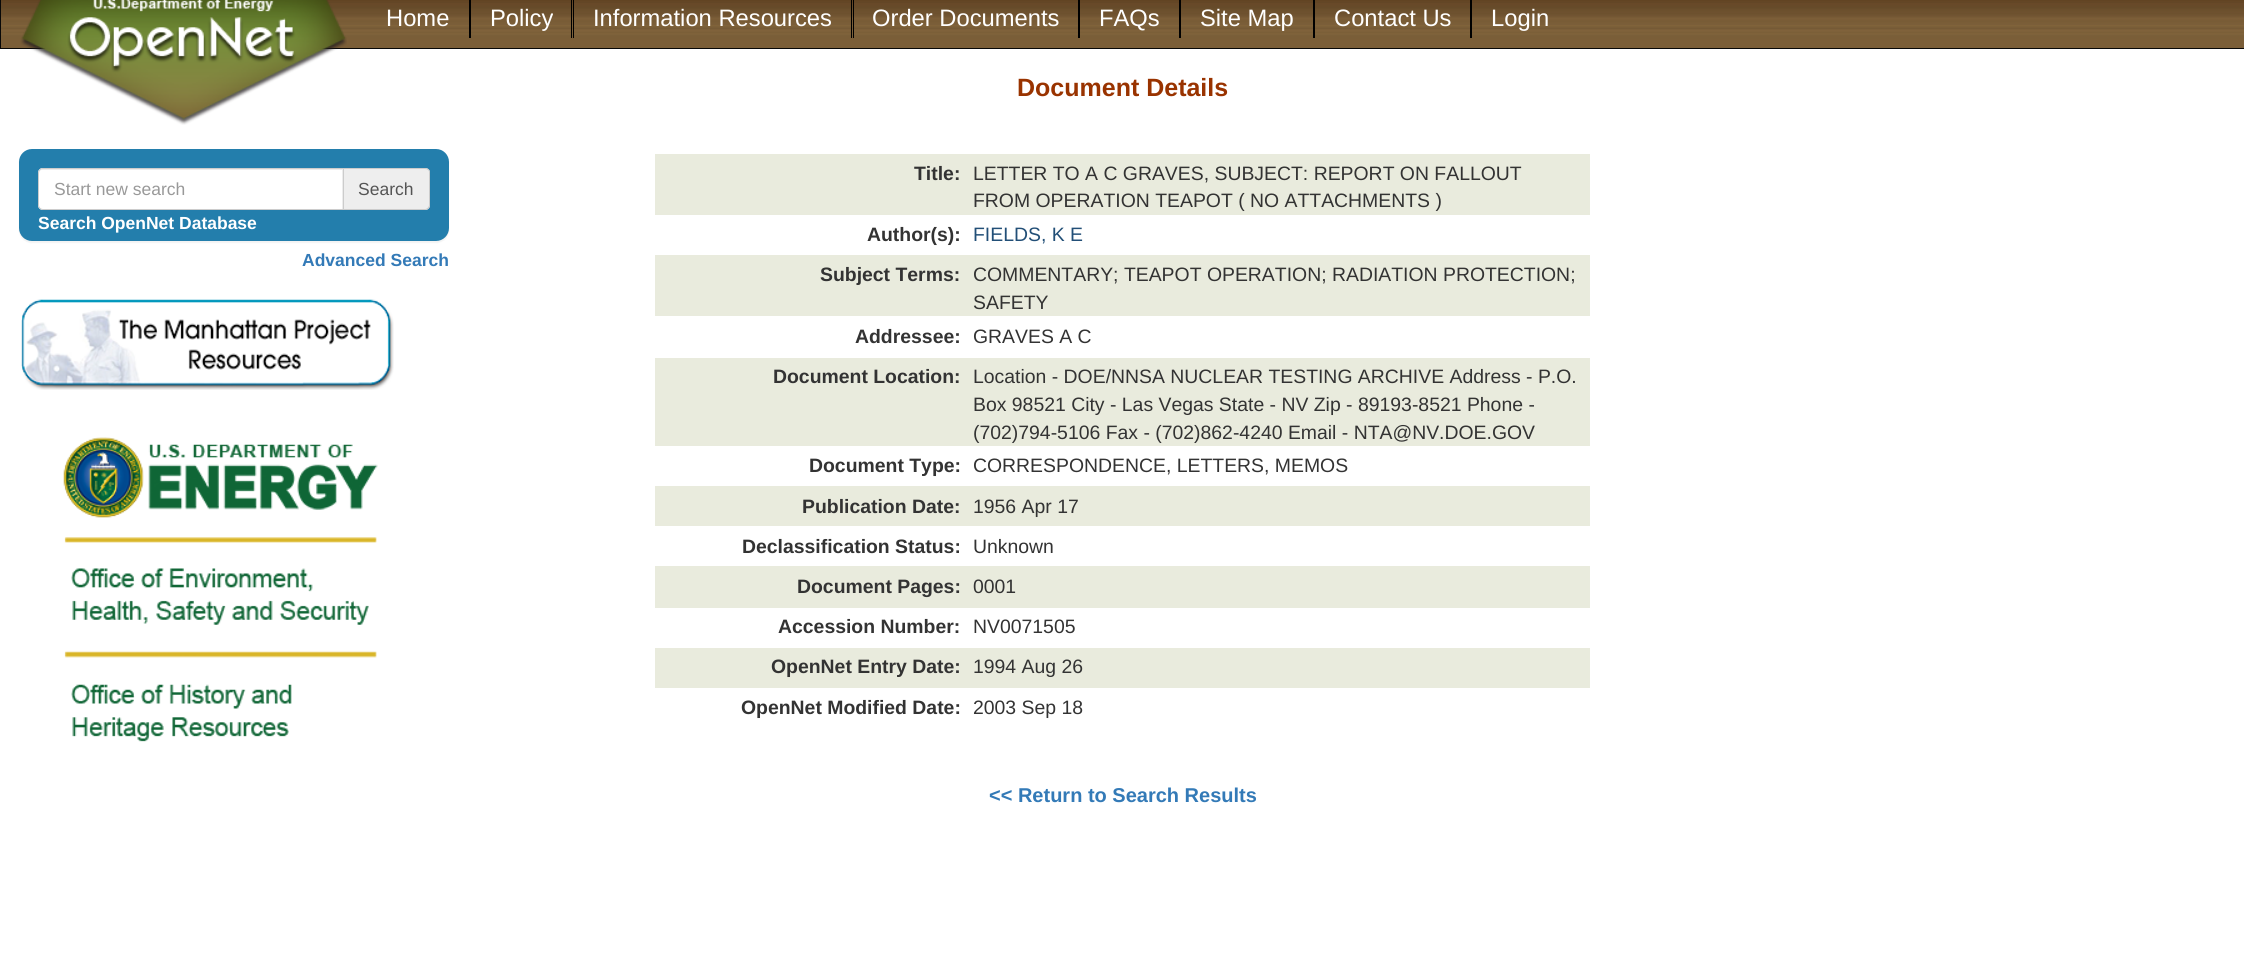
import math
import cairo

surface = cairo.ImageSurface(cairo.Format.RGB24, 2244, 976)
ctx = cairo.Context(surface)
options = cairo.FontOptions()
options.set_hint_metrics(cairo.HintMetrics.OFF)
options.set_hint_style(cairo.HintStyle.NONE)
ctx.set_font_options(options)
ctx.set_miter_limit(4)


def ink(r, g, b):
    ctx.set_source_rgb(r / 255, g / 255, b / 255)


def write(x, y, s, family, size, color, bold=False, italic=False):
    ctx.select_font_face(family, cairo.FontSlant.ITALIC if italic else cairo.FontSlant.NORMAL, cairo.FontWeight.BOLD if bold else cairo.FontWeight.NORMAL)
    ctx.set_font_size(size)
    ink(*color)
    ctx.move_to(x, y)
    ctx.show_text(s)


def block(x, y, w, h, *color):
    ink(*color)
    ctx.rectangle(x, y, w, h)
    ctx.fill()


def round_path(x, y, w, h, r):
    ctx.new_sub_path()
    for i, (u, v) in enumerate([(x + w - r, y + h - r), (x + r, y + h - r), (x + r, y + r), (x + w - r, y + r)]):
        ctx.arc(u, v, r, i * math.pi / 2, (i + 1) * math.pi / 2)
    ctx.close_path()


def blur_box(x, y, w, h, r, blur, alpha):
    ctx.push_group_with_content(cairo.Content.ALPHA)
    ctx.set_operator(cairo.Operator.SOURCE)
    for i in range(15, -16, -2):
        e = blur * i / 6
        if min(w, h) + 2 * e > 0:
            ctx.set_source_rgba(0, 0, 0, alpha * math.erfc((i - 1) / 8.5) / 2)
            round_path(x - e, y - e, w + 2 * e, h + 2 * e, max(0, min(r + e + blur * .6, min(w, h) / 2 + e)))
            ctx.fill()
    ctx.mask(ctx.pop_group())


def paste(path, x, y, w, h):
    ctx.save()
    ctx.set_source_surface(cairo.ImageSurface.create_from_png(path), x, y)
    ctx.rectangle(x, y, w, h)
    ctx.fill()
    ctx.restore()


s1 = dict(family="Liberation Sans", size=23.75, color=(255, 255, 255))
s2 = dict(family="Liberation Sans", size=17.5, color=(153, 153, 153))
s3 = dict(family="Liberation Sans", size=17.5, color=(85, 85, 85))
s4 = dict(family="Liberation Sans", size=17.5, color=(255, 255, 255), bold=True)
s5 = dict(family="Liberation Sans", size=17.5, color=(51, 122, 183), bold=True)
s6 = dict(family="Liberation Sans", size=25, color=(153, 51, 0), bold=True)
s7 = dict(family="Liberation Sans", size=19.4, color=(51, 51, 51), bold=True)
s8 = dict(family="Liberation Sans", size=19.4, color=(51, 51, 51))
s9 = dict(family="Liberation Sans", size=19.4, color=(34, 79, 119))
s10 = dict(family="Liberation Sans", size=20, color=(51, 122, 183), bold=True)

ink(255, 255, 255)
ctx.paint()
gradient = cairo.LinearGradient(1123, -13, 1123, 48)
gradient.add_color_stop_rgba(0, 0.251, 0.247, 0.255, 1)
gradient.add_color_stop_rgba(0.02, 0.373, 0.259, 0.153, 1)
gradient.add_color_stop_rgba(0.04, 0.318, 0.208, 0.098, 1)
gradient.add_color_stop_rgba(0.07, 0.341, 0.224, 0.106, 1)
gradient.add_color_stop_rgba(0.11, 0.337, 0.224, 0.11, 1)
gradient.add_color_stop_rgba(0.18, 0.357, 0.247, 0.129, 1)
gradient.add_color_stop_rgba(0.2, 0.353, 0.243, 0.125, 1)
gradient.add_color_stop_rgba(0.23, 0.396, 0.278, 0.145, 1)
gradient.add_color_stop_rgba(0.25, 0.384, 0.271, 0.149, 1)
gradient.add_color_stop_rgba(0.27, 0.408, 0.286, 0.157, 1)
gradient.add_color_stop_rgba(0.34, 0.4, 0.294, 0.165, 1)
gradient.add_color_stop_rgba(0.38, 0.427, 0.314, 0.18, 1)
gradient.add_color_stop_rgba(0.39, 0.42, 0.31, 0.176, 1)
gradient.add_color_stop_rgba(0.41, 0.435, 0.322, 0.184, 1)
gradient.add_color_stop_rgba(0.43, 0.424, 0.314, 0.18, 1)
gradient.add_color_stop_rgba(0.48, 0.451, 0.337, 0.2, 1)
gradient.add_color_stop_rgba(0.52, 0.49, 0.373, 0.22, 1)
gradient.add_color_stop_rgba(0.54, 0.475, 0.361, 0.212, 1)
gradient.add_color_stop_rgba(0.57, 0.471, 0.361, 0.212, 1)
gradient.add_color_stop_rgba(0.59, 0.482, 0.369, 0.22, 1)
gradient.add_color_stop_rgba(0.61, 0.478, 0.365, 0.22, 1)
gradient.add_color_stop_rgba(0.63, 0.502, 0.388, 0.227, 1)
gradient.add_color_stop_rgba(0.68, 0.459, 0.353, 0.212, 1)
gradient.add_color_stop_rgba(0.7, 0.49, 0.376, 0.224, 1)
gradient.add_color_stop_rgba(0.71, 0.502, 0.384, 0.231, 1)
gradient.add_color_stop_rgba(0.75, 0.482, 0.373, 0.22, 1)
gradient.add_color_stop_rgba(0.77, 0.506, 0.392, 0.235, 1)
gradient.add_color_stop_rgba(0.79, 0.482, 0.373, 0.224, 1)
gradient.add_color_stop_rgba(0.8, 0.478, 0.369, 0.22, 1)
gradient.add_color_stop_rgba(0.88, 0.482, 0.369, 0.22, 1)
ctx.set_source(gradient)
ctx.rectangle(1, 0, 2243, 48)
ctx.fill()
ctx.rectangle(0.5, -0.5, 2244, 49)
ink(8, 8, 8)
ctx.set_line_width(1)
ctx.stroke()
paste("pic1.png", 20, 0, 327, 125)
block(469, 0, 2, 38, 0, 0, 0)
write(386, 26, "Home", **s1)
block(571, 0, 1, 38, 0, 0, 0)
write(490, 26, "Policy", **s1)
block(851, 0, 1, 38, 0, 0, 0)
block(573, 0, 1, 38, 0, 0, 0)
write(593, 26, "Information Resources", **s1)
block(1078, 0, 2, 38, 0, 0, 0)
block(853, 0, 1, 38, 0, 0, 0)
write(872, 26, "Order Documents", **s1)
block(1179, 0, 2, 38, 0, 0, 0)
write(1099, 26, "FAQs", **s1)
block(1313, 0, 2, 38, 0, 0, 0)
write(1200, 26, "Site Map", **s1)
block(1470, 0, 2, 38, 0, 0, 0)
write(1334, 26, "Contact Us", **s1)
write(1491, 26, "Login", **s1)
ink(0, 0, 0)
blur_box(19, 150, 430, 93, 13, 0.5, 0.05)
ink(35, 126, 172)
round_path(19, 149, 430, 92, 13)
ctx.fill()
ink(255, 255, 255)
ctx.new_path()
ctx.move_to(43, 168)
ctx.line_to(344, 168)
ctx.line_to(344, 210)
ctx.line_to(43, 210)
ctx.curve_to(40, 210, 38, 208, 38, 205)
ctx.line_to(38, 173)
ctx.curve_to(38, 170, 40, 168, 43, 168)
ctx.close_path()
ctx.fill()
ink(236, 236, 236)
ctx.new_path()
ctx.move_to(42, 170)
ctx.line_to(342, 170)
ctx.line_to(342, 209)
ctx.line_to(343, 209)
ctx.line_to(343, 169)
ctx.line_to(43, 169)
ctx.curve_to(41, 169, 39, 171, 39, 173)
ctx.line_to(39, 174)
ctx.curve_to(39, 172, 40, 170, 42, 170)
ctx.close_path()
ctx.fill()
ctx.new_path()
ctx.move_to(43, 168.5)
ctx.line_to(343.5, 168.5)
ctx.line_to(343.5, 209.5)
ctx.line_to(43, 209.5)
ctx.curve_to(40.5, 209.5, 38.5, 207.5, 38.5, 205)
ctx.line_to(38.5, 173)
ctx.curve_to(38.5, 170.5, 40.5, 168.5, 43, 168.5)
ctx.close_path()
ink(204, 204, 204)
ctx.stroke()
write(54, 195, "Start new search", **s2)
ink(238, 238, 238)
ctx.new_path()
ctx.move_to(344, 168)
ctx.line_to(425, 168)
ctx.curve_to(428, 168, 430, 170, 430, 173)
ctx.line_to(430, 205)
ctx.curve_to(430, 208, 428, 210, 425, 210)
ctx.line_to(344, 210)
ctx.close_path()
ctx.fill()
ink(204, 204, 204)
ctx.set_fill_rule(cairo.FillRule.EVEN_ODD)
ctx.new_path()
ctx.move_to(344, 168)
ctx.line_to(425, 168)
ctx.curve_to(428, 168, 430, 170, 430, 172)
ctx.line_to(430, 205)
ctx.curve_to(430, 208, 428, 210, 425, 210)
ctx.line_to(344, 210)
ctx.close_path()
ctx.move_to(344, 169)
ctx.line_to(425, 169)
ctx.curve_to(427, 169, 429, 170, 429, 172)
ctx.line_to(429, 205)
ctx.curve_to(429, 207, 427, 209, 425, 209)
ctx.line_to(344, 209)
ctx.close_path()
ctx.fill()
write(358, 195, "Search", **s3)
write(38, 229, "Search OpenNet Database", **s4)
write(302, 266, "Advanced Search", **s5)
paste("pic2.png", 21, 299, 373, 91)
paste("pic3.png", 63, 437, 315, 305)
write(1017, 96, "Document Details", **s6)
block(655, 154, 935, 61, 233, 235, 221)
write(914, 180, "Title:", **s7)
write(973, 180, "LETTER TO A C GRAVES, SUBJECT: REPORT ON FALLOUT", **s8)
write(973, 207, "FROM OPERATION TEAPOT ( NO ATTACHMENTS )", **s8)
write(867, 241, "Author(s):", **s7)
write(973, 241, "FIELDS, K E", **s9)
block(655, 255, 935, 61, 233, 235, 221)
write(820, 281, "Subject Terms:", **s7)
write(973, 281, "COMMENTARY; TEAPOT OPERATION; RADIATION PROTECTION;", **s8)
write(973, 309, "SAFETY", **s8)
write(855, 343, "Addressee:", **s7)
write(973, 343, "GRAVES A C", **s8)
block(655, 358, 935, 88, 233, 235, 221)
write(773, 383, "Document Location:", **s7)
write(973, 383, "Location - DOE/NNSA NUCLEAR TESTING ARCHIVE Address - P.O.", **s8)
write(973, 411, "Box 98521 City - Las Vegas State - NV Zip - 89193-8521 Phone -", **s8)
write(973, 439, "(702)794-5106 Fax - (702)862-4240 Email - NTA@NV.DOE.GOV", **s8)
write(809, 472, "Document Type:", **s7)
write(973, 472, "CORRESPONDENCE, LETTERS, MEMOS", **s8)
block(655, 486, 935, 40, 233, 235, 221)
write(802, 513, "Publication Date:", **s7)
write(973, 513, "1956 Apr 17", **s8)
write(742, 553, "Declassification Status:", **s7)
write(973, 553, "Unknown", **s8)
block(655, 566, 935, 42, 233, 235, 221)
write(797, 593, "Document Pages:", **s7)
write(973, 593, "0001", **s8)
write(778, 633, "Accession Number:", **s7)
write(973, 633, "NV0071505", **s8)
block(655, 648, 935, 40, 233, 235, 221)
write(771, 673, "OpenNet Entry Date:", **s7)
write(973, 673, "1994 Aug 26", **s8)
write(741, 714, "OpenNet Modified Date:", **s7)
write(973, 714, "2003 Sep 18", **s8)
write(989, 802, "<< Return to Search Results", **s10)
surface.write_to_png("screenshot.png")
